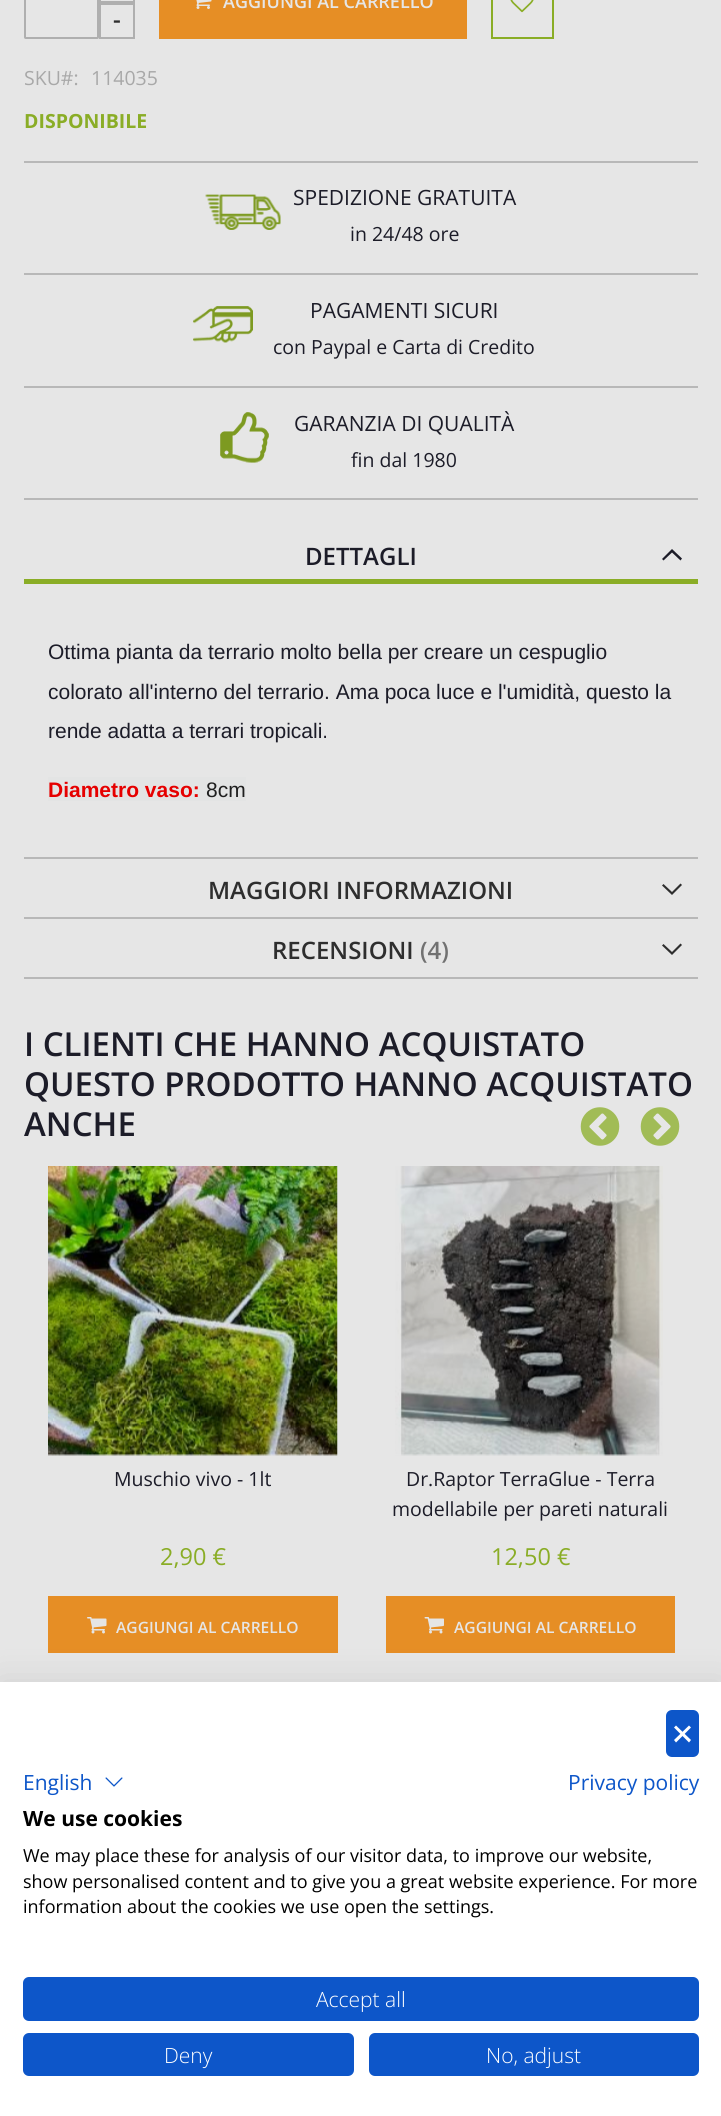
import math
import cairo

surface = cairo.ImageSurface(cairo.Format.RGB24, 721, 2116)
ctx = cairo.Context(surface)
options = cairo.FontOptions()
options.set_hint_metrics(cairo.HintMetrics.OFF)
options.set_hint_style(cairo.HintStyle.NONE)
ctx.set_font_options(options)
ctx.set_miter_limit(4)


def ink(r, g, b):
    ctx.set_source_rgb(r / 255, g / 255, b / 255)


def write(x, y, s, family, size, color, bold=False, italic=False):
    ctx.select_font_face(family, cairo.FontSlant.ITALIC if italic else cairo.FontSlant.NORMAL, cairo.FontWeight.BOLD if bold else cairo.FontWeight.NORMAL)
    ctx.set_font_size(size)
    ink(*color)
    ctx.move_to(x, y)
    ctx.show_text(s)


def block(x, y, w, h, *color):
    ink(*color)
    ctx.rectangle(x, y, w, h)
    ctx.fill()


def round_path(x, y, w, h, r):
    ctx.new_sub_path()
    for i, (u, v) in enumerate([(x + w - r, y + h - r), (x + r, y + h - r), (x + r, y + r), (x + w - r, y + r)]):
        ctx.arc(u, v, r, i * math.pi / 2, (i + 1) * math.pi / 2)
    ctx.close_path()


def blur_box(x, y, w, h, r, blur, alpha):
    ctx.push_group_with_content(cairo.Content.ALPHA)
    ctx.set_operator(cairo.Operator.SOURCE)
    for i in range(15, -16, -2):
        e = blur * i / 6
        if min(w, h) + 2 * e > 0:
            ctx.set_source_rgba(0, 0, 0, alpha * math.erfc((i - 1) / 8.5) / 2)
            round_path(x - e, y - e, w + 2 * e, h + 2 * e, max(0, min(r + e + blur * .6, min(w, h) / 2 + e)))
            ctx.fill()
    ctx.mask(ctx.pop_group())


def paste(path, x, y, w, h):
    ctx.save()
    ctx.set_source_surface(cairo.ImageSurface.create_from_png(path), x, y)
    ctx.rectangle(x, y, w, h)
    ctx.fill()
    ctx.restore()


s1 = dict(family="Open Sans SemiBold", size=18, color=(230, 230, 230))
s2 = dict(family="Open Sans SemiBold", size=24, color=(46, 46, 46))
s3 = dict(family="Open Sans", size=19.5, color=(168, 168, 168))
s4 = dict(family="Open Sans", size=19.5, color=(138, 173, 38), bold=True)
s5 = dict(family="Open Sans", size=21, color=(28, 28, 40))
s6 = dict(family="Open Sans", size=19.5, color=(28, 28, 40))
s7 = dict(family="Open Sans SemiBold", size=24, color=(28, 28, 40))
s8 = dict(family="Liberation Sans", size=21, color=(28, 28, 40))
s9 = dict(family="Liberation Sans", size=21, color=(230, 0, 0), bold=True)
s10 = dict(family="Liberation Sans", size=21, color=(31, 31, 31))
s11 = dict(family="Open Sans SemiBold", size=24, color=(113, 113, 113))
s12 = dict(family="Open Sans SemiBold", size=33, color=(28, 28, 40))
s13 = dict(family="Open Sans", size=23.5, color=(138, 173, 38))
s14 = dict(family="Open Sans SemiBold", size=15.6, color=(230, 230, 230))
s15 = dict(family="Open Sans", size=21, color=(13, 86, 201))
s16 = dict(family="Open Sans", size=21, color=(0, 0, 0), bold=True)
s17 = dict(family="Open Sans", size=18, color=(0, 0, 0))
s18 = dict(family="Open Sans Light", size=21, color=(255, 255, 255))

ink(230, 230, 230)
ctx.paint()
block(159, 0, 308, 39, 230, 142, 37)
paste("pic1.png", 196, 0, 16, 9)
write(223, 8, "AGGIUNGI AL CARRELLO", **s1)
ctx.rectangle(492, -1, 61, 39)
ink(138, 173, 38)
ctx.stroke()
paste("pic2.png", 510, 0, 24, 13)
round_path(25, -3, 73, 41, 0.5)
ink(175, 175, 175)
ctx.stroke()
ctx.rectangle(100, -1, 34, 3)
ctx.stroke()
ctx.rectangle(100, 4, 34, 34)
ctx.stroke()
write(113, 28, "-", **s2)
write(24, 85, "SKU#:", **s3)
write(91, 85, "114035", **s3)
write(24, 128, "DISPONIBILE", **s4)
block(24, 161, 674, 2, 184, 184, 184)
paste("pic3.png", 205, 194, 76, 36)
write(293, 205, "SPEDIZIONE GRATUITA", **s5)
write(350, 241, "in 24/48 ore", **s6)
block(24, 273, 674, 2, 184, 184, 184)
paste("pic4.png", 193, 306, 60, 37)
write(310, 318, "PAGAMENTI SICURI", **s5)
write(273, 354, "con Paypal e Carta di Credito", **s6)
block(24, 386, 674, 2, 184, 184, 184)
block(24, 498, 674, 2, 184, 184, 184)
paste("pic5.png", 220, 412, 49, 51)
write(294, 431, "GARANZIA DI QUALITÀ", **s5)
write(351, 467, "fin dal 1980", **s6)
block(24, 977, 674, 2, 184, 184, 184)
block(24, 579, 674, 5, 138, 173, 38)
write(305, 565, "DETTAGLI", **s7)
ctx.new_path()
ctx.move_to(672, 552.5)
ctx.line_to(680.5, 560.5)
ctx.line_to(682, 558.5)
ctx.line_to(672, 549)
ctx.line_to(662, 559)
ctx.line_to(663.5, 560.5)
ctx.close_path()
ctx.fill()
write(48, 659, "Ottima pianta da terrario molto bella per creare un cespuglio", **s8)
write(48, 699, "colorato all'interno del terrario. Ama poca luce e l'umidità, questo la", **s8)
write(48, 738, "rende adatta a terrari tropicali.", **s8)
block(48, 777, 198, 24, 227, 228, 228)
write(48, 797, "Diametro vaso:", **s9)
write(206, 797, "8cm", **s10)
block(24, 857, 674, 2, 184, 184, 184)
write(208, 899, "MAGGIORI INFORMAZIONI", **s2)
ctx.new_path()
ctx.move_to(672, 892)
ctx.line_to(663.5, 884)
ctx.line_to(662, 885.5)
ctx.line_to(672, 895)
ctx.line_to(682, 885)
ctx.line_to(680.5, 883.5)
ctx.close_path()
ctx.fill()
block(24, 917, 674, 2, 184, 184, 184)
write(272, 959, "RECENSIONI", **s2)
write(420, 959, "(4)", **s11)
ink(46, 46, 46)
ctx.new_path()
ctx.move_to(672, 952)
ctx.line_to(663.5, 944)
ctx.line_to(662, 945.5)
ctx.line_to(672, 955)
ctx.line_to(682, 945)
ctx.line_to(680.5, 943.5)
ctx.close_path()
ctx.fill()
write(24, 1056, "I CLIENTI CHE HANNO ACQUISTATO", **s12)
write(24, 1096, "QUESTO PRODOTTO HANNO ACQUISTATO", **s12)
write(24, 1136, "ANCHE", **s12)
paste("pic6.png", 580, 1107, 40, 39)
paste("pic7.png", 640, 1107, 40, 39)
paste("pic8.png", 48, 1166, 290, 290)
write(114, 1486, "Muschio vivo - 1lt", **s6)
write(160, 1565, "2,90 €", **s13)
block(48, 1596, 290, 57, 230, 142, 37)
paste("pic9.png", 87, 1617, 20, 17)
write(116, 1633, "AGGIUNGI AL CARRELLO", **s14)
paste("pic10.png", 395, 1166, 268, 290)
write(406, 1486, "Dr.Raptor TerraGlue - Terra", **s6)
write(392, 1516, "modellabile per pareti naturali", **s6)
write(491, 1565, "12,50 €", **s13)
block(386, 1596, 289, 57, 230, 142, 37)
paste("pic11.png", 424, 1617, 20, 17)
write(454, 1633, "AGGIUNGI AL CARRELLO", **s14)
ink(0, 0, 0)
blur_box(0, 1682, 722, 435, 0, 18, 0.1)
block(0, 1682, 721, 434, 255, 255, 255)
ink(13, 86, 201)
round_path(666, 1710, 33, 47, 6)
ctx.fill()
ink(255, 255, 255)
ctx.new_path()
ctx.move_to(689, 1725.5)
ctx.line_to(691, 1727.5)
ctx.line_to(676, 1742.5)
ctx.line_to(674, 1740)
ctx.close_path()
ctx.fill()
ctx.new_path()
ctx.move_to(674, 1727.5)
ctx.line_to(676, 1725.5)
ctx.line_to(691, 1740)
ctx.line_to(689, 1742.5)
ctx.close_path()
ctx.fill()
write(23, 1790, "English", **s15)
paste("pic12.png", 105, 1777, 18, 10)
write(568, 1790, "Privacy policy", **s15)
write(23, 1826, "We use cookies", **s16)
write(23, 1862, "We may place these for analysis of our visitor data, to improve our website,", **s17)
write(23, 1888, "show personalised content and to give you a great website experience. For more", **s17)
write(23, 1913, "information about the cookies we use open the settings.", **s17)
ink(13, 86, 201)
round_path(23, 1977, 676, 44, 6)
ctx.fill()
write(316, 2007, "Accept all", **s18)
ink(13, 86, 201)
round_path(23, 2033, 331, 43, 6)
ctx.fill()
write(164, 2063, "Deny", **s18)
ink(13, 86, 201)
round_path(369, 2033, 330, 43, 6)
ctx.fill()
write(486, 2063, "No, adjust", **s18)
surface.write_to_png("screenshot.png")
